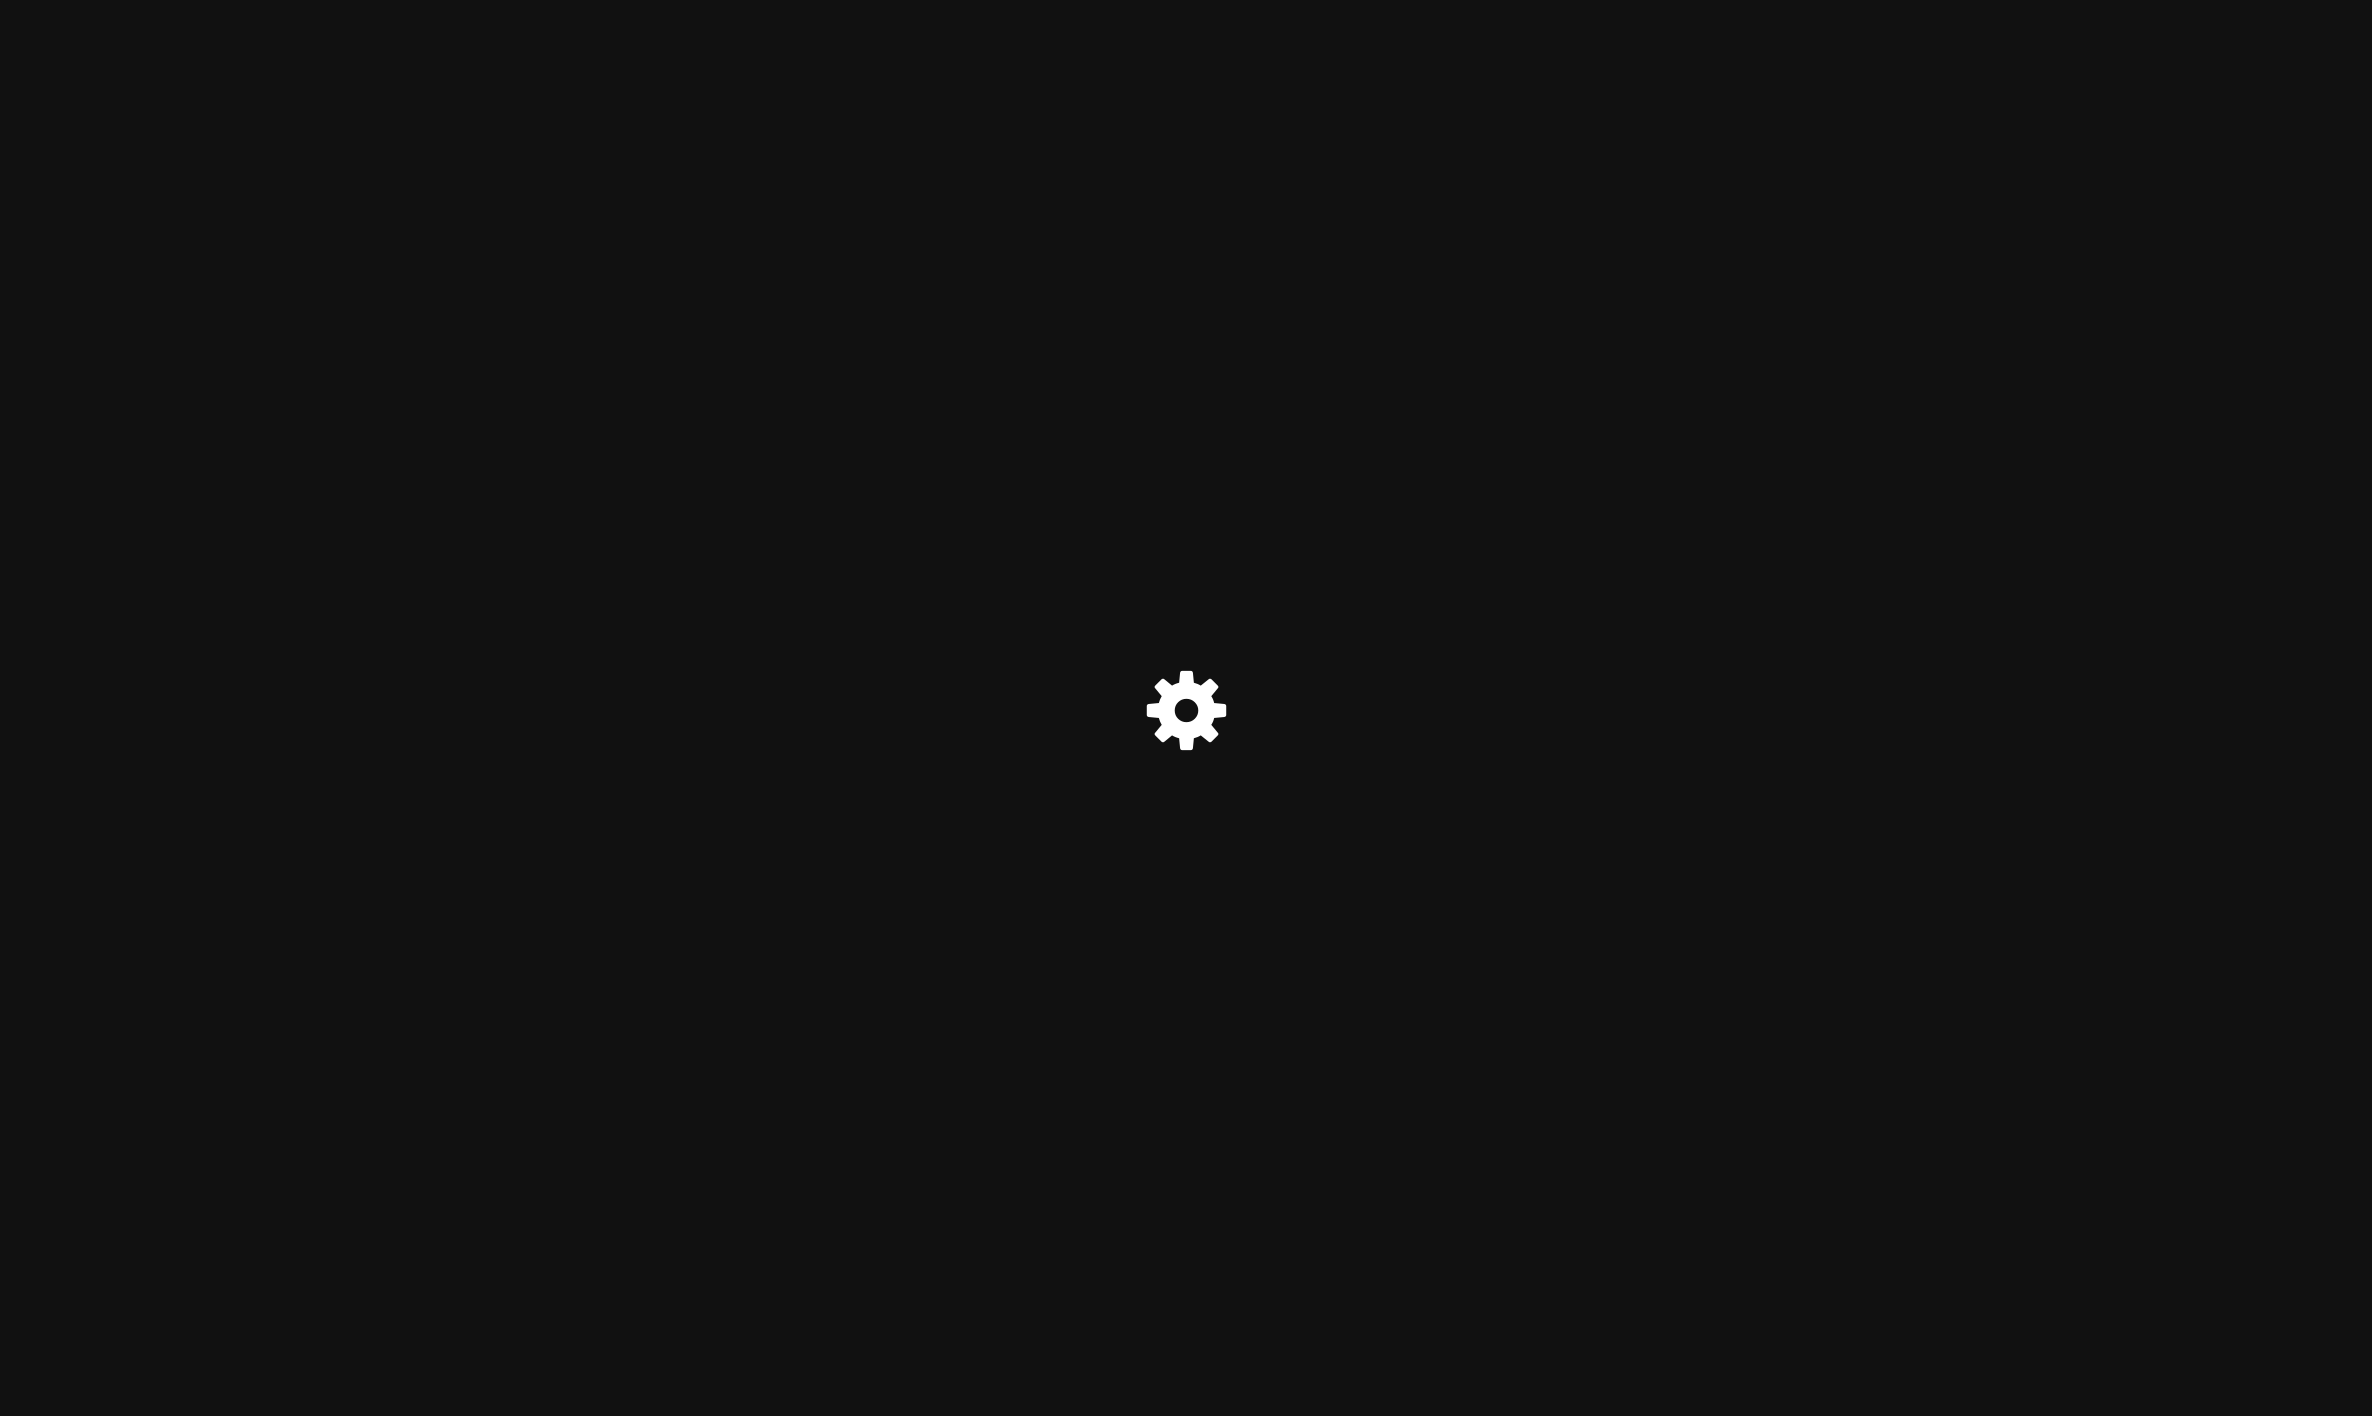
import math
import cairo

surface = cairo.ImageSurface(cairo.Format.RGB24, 2372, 1416)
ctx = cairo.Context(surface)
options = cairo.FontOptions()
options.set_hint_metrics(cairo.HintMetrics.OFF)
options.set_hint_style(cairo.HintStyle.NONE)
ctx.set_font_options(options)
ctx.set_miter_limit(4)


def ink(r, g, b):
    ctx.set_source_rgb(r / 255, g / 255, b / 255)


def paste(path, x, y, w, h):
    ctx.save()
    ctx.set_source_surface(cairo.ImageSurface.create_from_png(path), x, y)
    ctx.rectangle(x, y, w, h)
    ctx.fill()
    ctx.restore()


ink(17, 17, 17)
ctx.paint()
paste("pic1.png", 1146, 670, 81, 81)
surface.write_to_png("screenshot.png")
